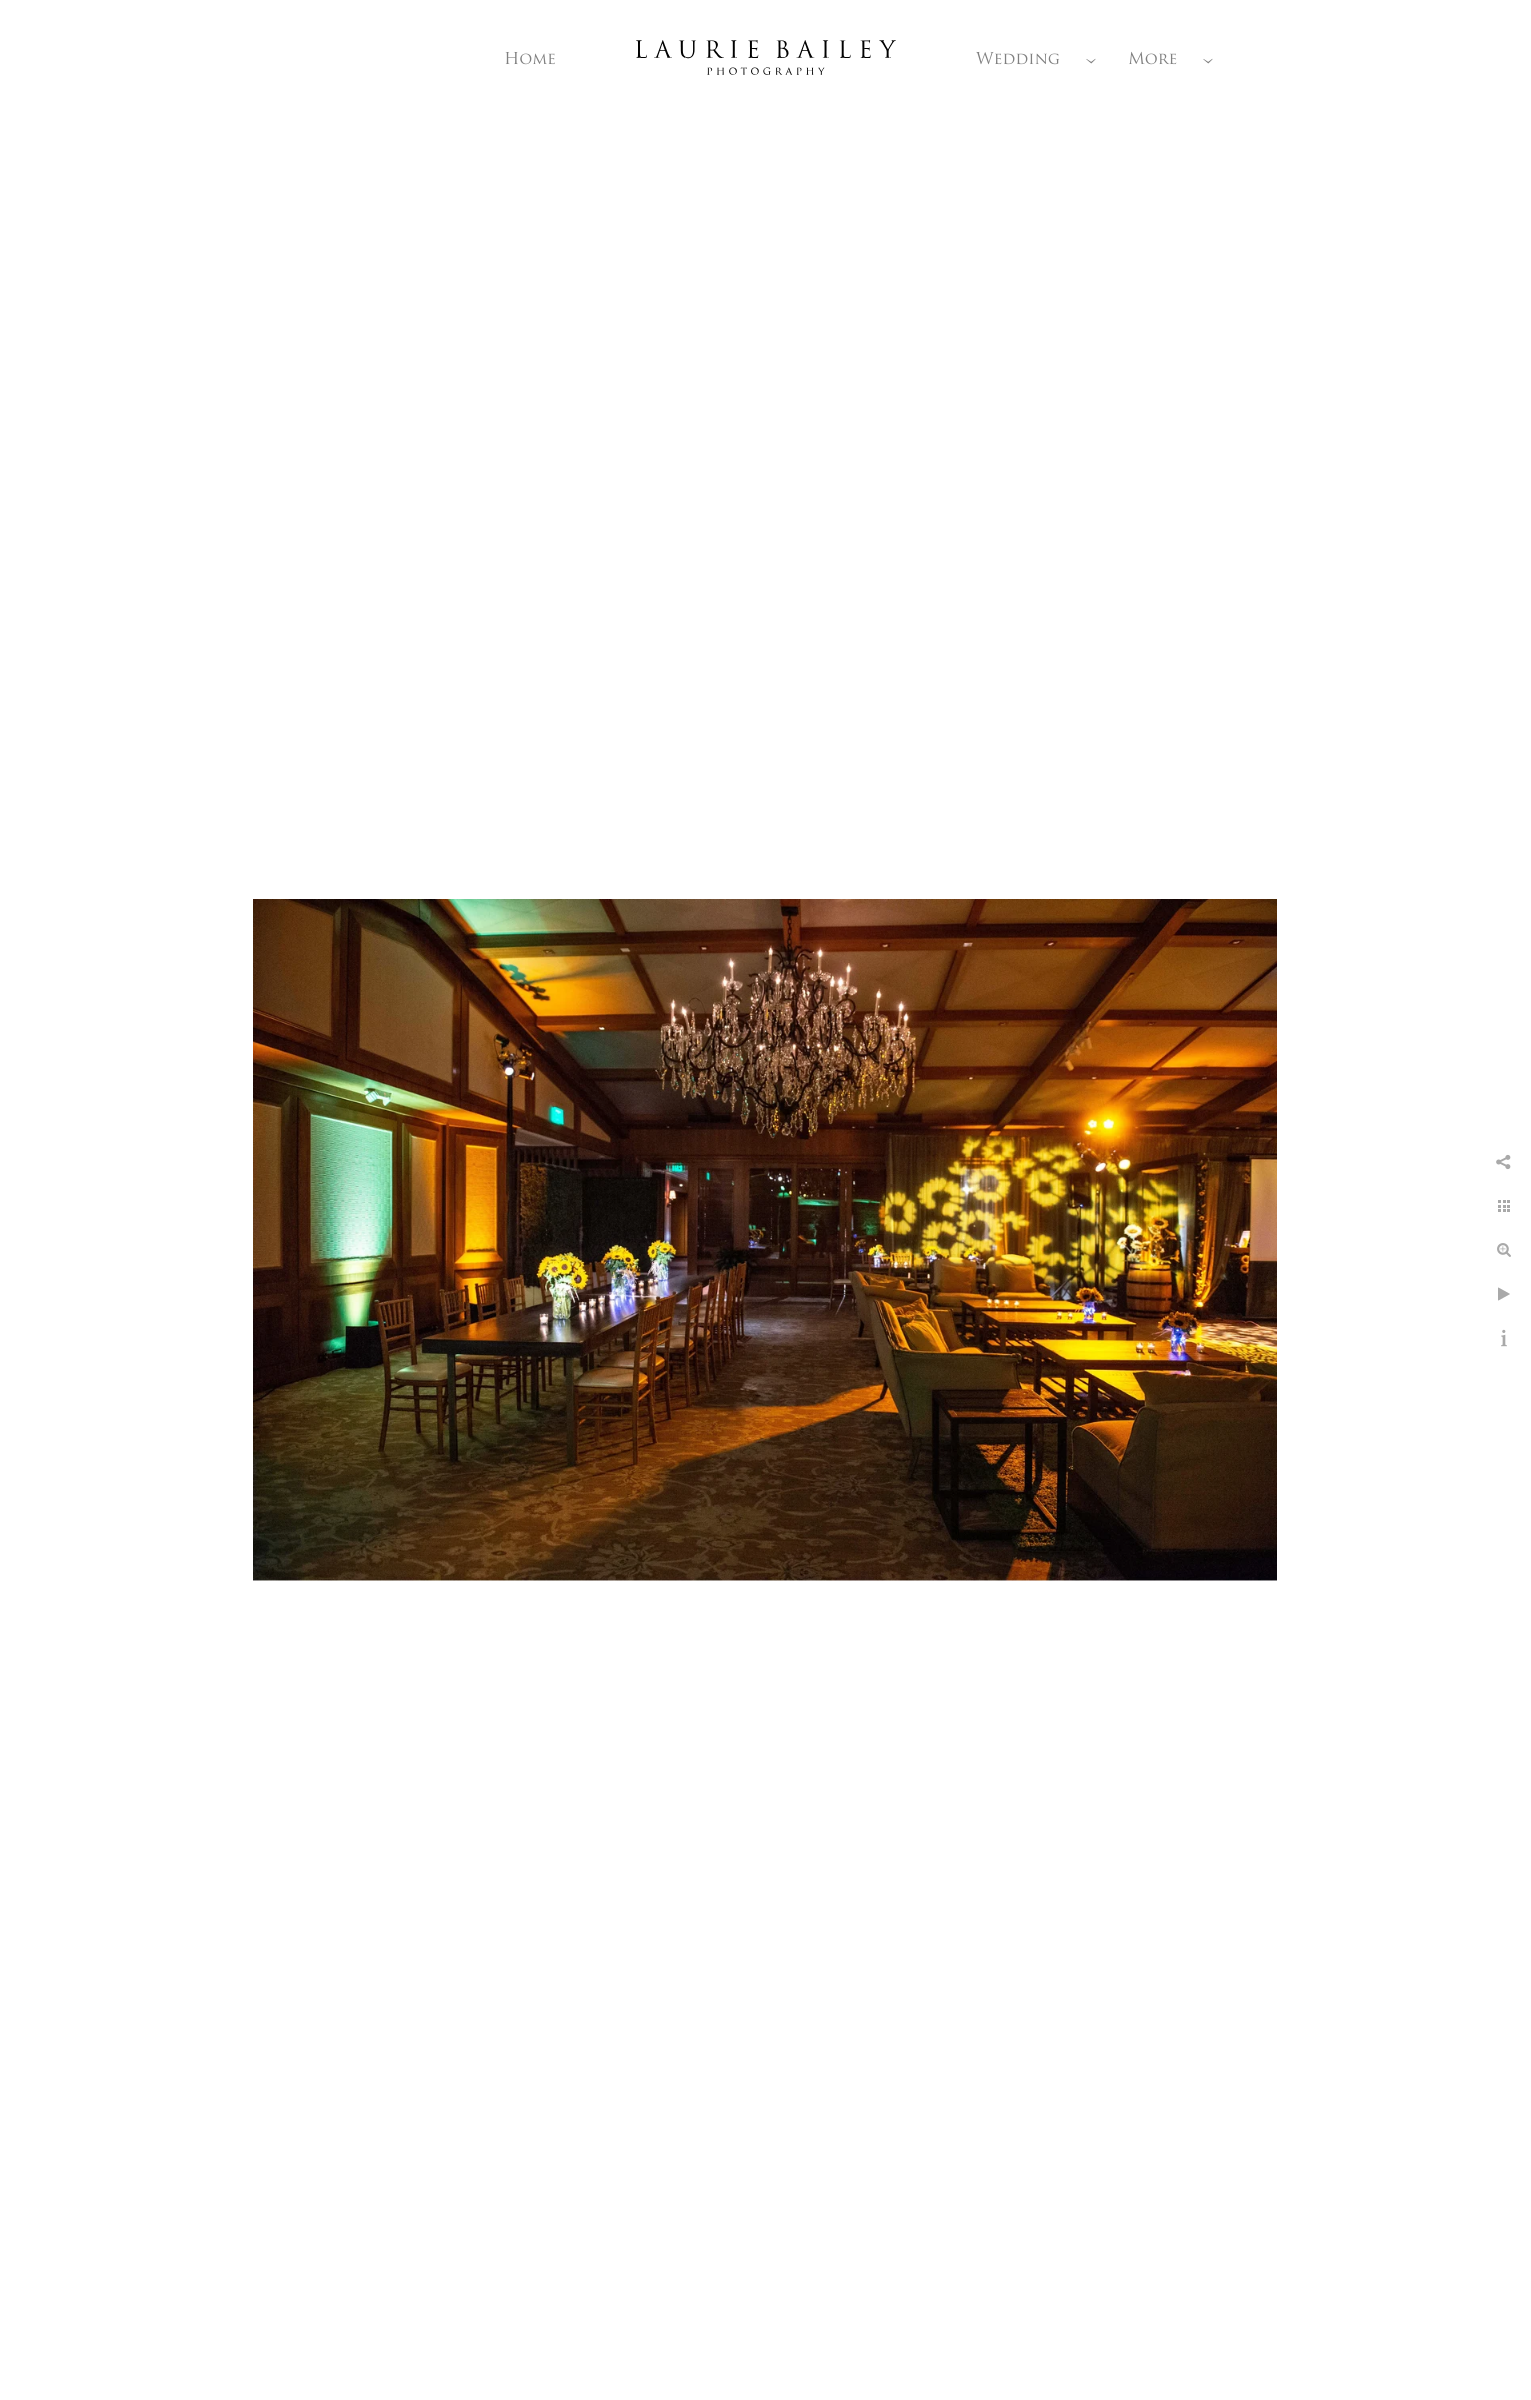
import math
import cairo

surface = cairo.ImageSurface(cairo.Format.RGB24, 1531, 2400)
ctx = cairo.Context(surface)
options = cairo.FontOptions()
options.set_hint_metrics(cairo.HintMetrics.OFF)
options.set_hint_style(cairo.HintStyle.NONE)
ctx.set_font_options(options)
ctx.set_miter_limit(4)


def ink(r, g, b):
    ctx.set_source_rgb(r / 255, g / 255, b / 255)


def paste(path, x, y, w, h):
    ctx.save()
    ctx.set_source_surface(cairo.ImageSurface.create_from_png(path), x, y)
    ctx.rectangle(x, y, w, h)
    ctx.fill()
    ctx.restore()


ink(255, 255, 255)
ctx.paint()
paste("pic1.png", 505, 51, 50, 14)
paste("pic2.png", 636, 40, 260, 35)
paste("pic3.png", 976, 51, 84, 14)
paste("pic4.png", 1086, 58, 10, 6)
paste("pic5.png", 1129, 51, 48, 14)
paste("pic4.png", 1203, 58, 10, 6)
paste("pic6.png", 253, 899, 1024, 682)
paste("pic7.png", 1496, 1154, 15, 16)
paste("pic8.png", 1498, 1200, 12, 12)
paste("pic9.png", 1497, 1243, 14, 14)
paste("pic10.png", 1498, 1287, 12, 14)
paste("pic11.png", 1501, 1329, 6, 18)
surface.write_to_png("screenshot.png")
